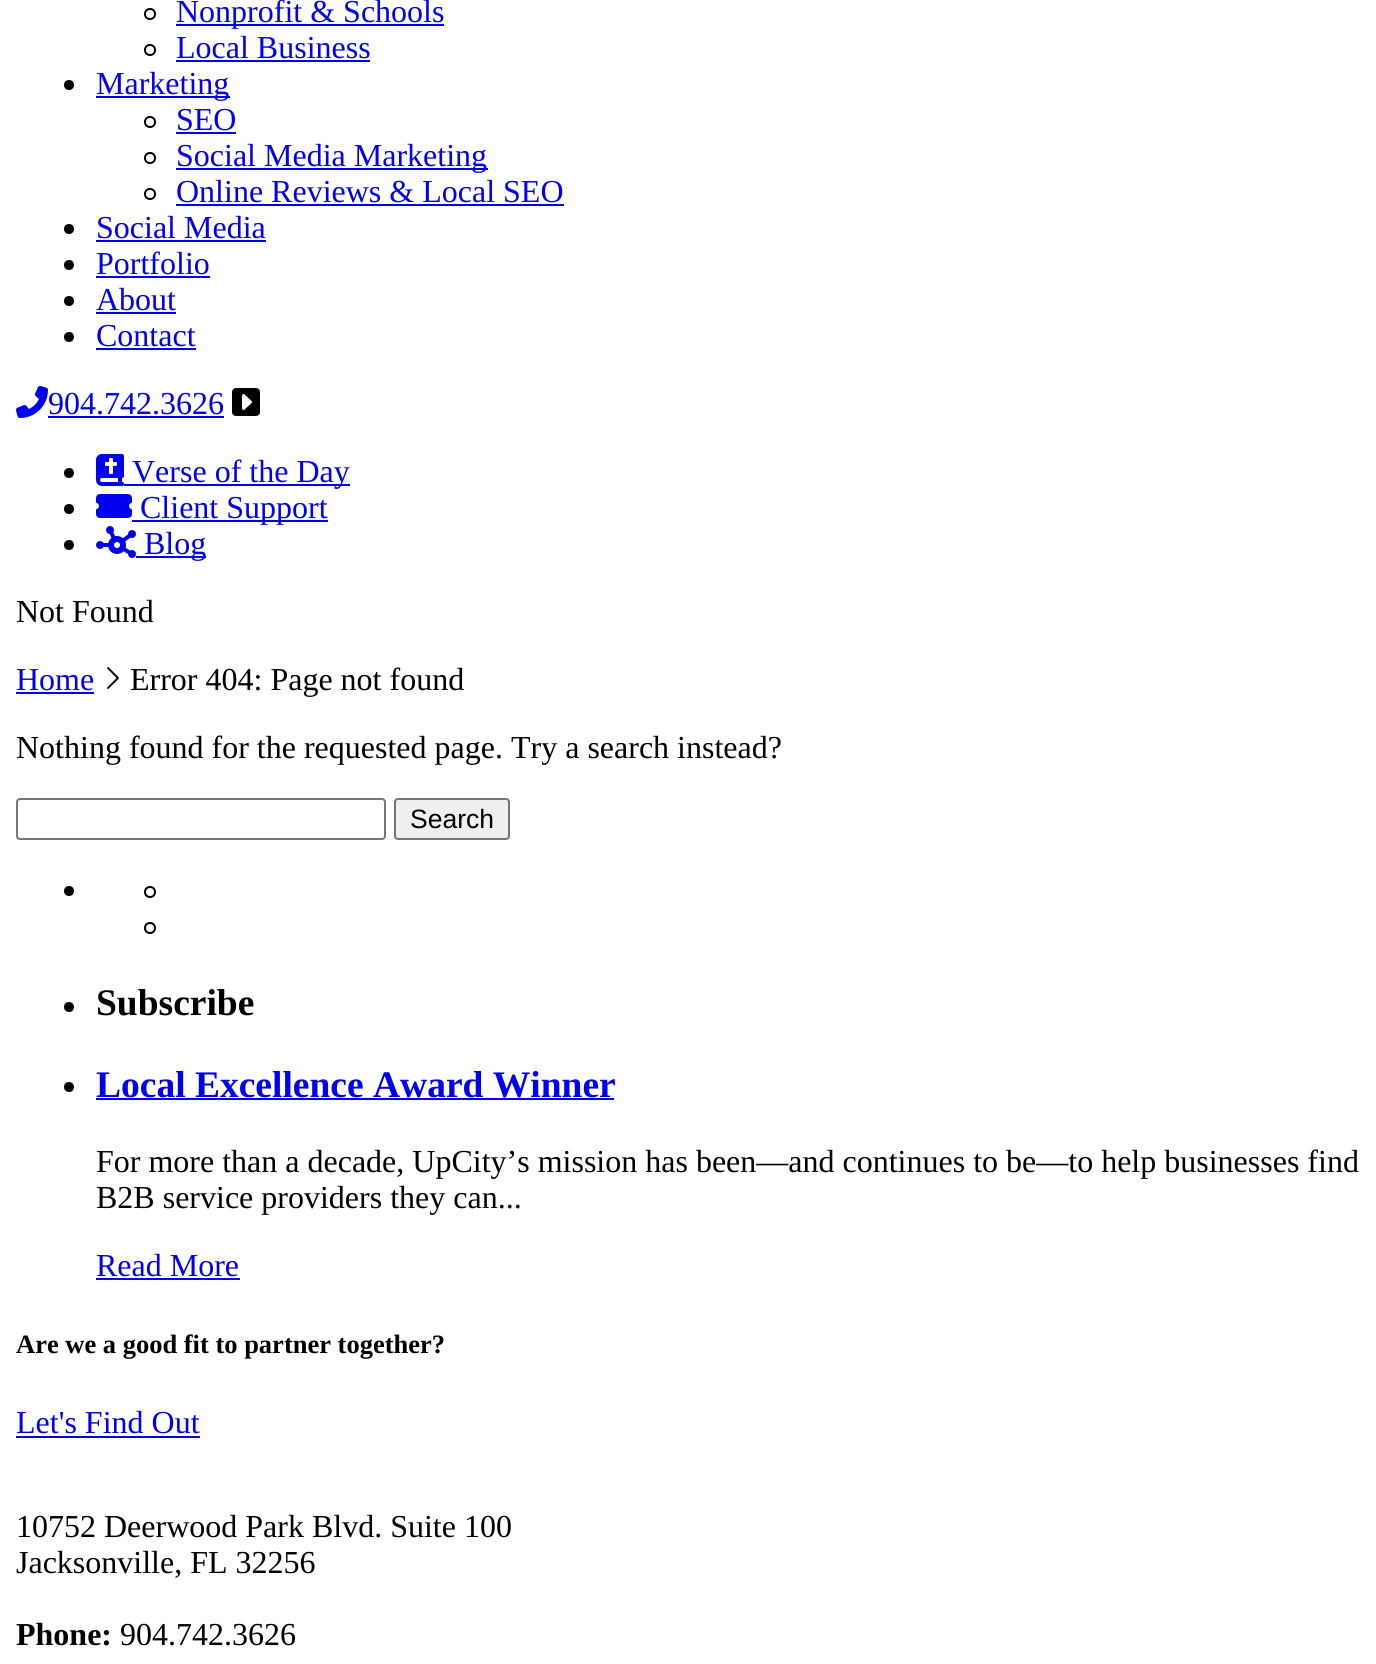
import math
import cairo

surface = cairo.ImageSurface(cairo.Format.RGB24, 1376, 1664)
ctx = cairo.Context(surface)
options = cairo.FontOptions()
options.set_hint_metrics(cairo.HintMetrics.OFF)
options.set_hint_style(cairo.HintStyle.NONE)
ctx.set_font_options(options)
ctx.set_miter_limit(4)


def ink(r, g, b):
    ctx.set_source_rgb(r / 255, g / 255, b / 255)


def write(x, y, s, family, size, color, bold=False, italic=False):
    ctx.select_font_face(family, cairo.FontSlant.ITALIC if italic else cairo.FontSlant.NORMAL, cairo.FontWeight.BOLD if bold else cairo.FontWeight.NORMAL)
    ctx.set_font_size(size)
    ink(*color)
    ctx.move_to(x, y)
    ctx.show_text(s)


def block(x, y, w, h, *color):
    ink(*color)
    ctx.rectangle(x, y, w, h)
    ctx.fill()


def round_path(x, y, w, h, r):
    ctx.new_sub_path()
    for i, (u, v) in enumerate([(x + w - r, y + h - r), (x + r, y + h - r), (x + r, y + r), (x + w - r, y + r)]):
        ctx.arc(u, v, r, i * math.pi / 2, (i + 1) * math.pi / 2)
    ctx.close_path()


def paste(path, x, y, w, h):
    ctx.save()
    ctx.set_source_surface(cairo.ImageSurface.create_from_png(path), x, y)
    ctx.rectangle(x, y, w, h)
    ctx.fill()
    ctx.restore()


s1 = dict(family="Liberation Serif", size=32, color=(0, 0, 238))
s2 = dict(family="Liberation Serif", size=32, color=(0, 0, 0))
s3 = dict(family="Liberation Sans", size=26.5, color=(0, 0, 0))
s4 = dict(family="Liberation Serif", size=37.5, color=(0, 0, 0), bold=True)
s5 = dict(family="Liberation Serif", size=37.5, color=(0, 0, 238), bold=True)
s6 = dict(family="Liberation Serif", size=26.5, color=(0, 0, 0), bold=True)
s7 = dict(family="Liberation Serif", size=32, color=(0, 0, 0), bold=True)

ink(255, 255, 255)
ctx.paint()
ctx.arc(150, 14, 5, 0, 2 * math.pi)
ink(0, 0, 0)
ctx.stroke()
block(176, 24, 268, 2, 0, 0, 238)
write(176, 22, "Nonprofit & Schools", **s1)
ctx.new_path()
ctx.arc(150, 50, 5, 0, 2 * math.pi)
ink(0, 0, 0)
ctx.stroke()
write(176, 58, "Local Business", **s1)
block(176, 60, 194, 2, 0, 0, 238)
ink(0, 0, 0)
ctx.new_path()
ctx.arc(69, 85, 5, 0, 2 * math.pi)
ctx.fill()
block(96, 96, 134, 2, 0, 0, 238)
write(96, 94, "Marketing", **s1)
ctx.new_path()
ctx.arc(150, 122, 5, 0, 2 * math.pi)
ink(0, 0, 0)
ctx.stroke()
write(176, 130, "SEO", **s1)
block(176, 132, 60, 2, 0, 0, 238)
ctx.new_path()
ctx.arc(150, 158, 5, 0, 2 * math.pi)
ink(0, 0, 0)
ctx.stroke()
block(176, 168, 312, 2, 0, 0, 238)
write(176, 166, "Social Media Marketing", **s1)
ctx.new_path()
ctx.arc(150, 194, 5, 0, 2 * math.pi)
ink(0, 0, 0)
ctx.stroke()
write(176, 202, "Online Reviews & Local SEO", **s1)
block(176, 204, 388, 2, 0, 0, 238)
ink(0, 0, 0)
ctx.new_path()
ctx.arc(69, 229, 5, 0, 2 * math.pi)
ctx.fill()
write(96, 238, "Social Media", **s1)
block(96, 240, 170, 2, 0, 0, 238)
ink(0, 0, 0)
ctx.new_path()
ctx.arc(69, 265, 5, 0, 2 * math.pi)
ctx.fill()
write(96, 274, "Portfolio", **s1)
block(96, 276, 114, 2, 0, 0, 238)
ink(0, 0, 0)
ctx.new_path()
ctx.arc(69, 301, 5, 0, 2 * math.pi)
ctx.fill()
write(96, 310, "About", **s1)
block(96, 312, 80, 2, 0, 0, 238)
ink(0, 0, 0)
ctx.new_path()
ctx.arc(69, 337, 5, 0, 2 * math.pi)
ctx.fill()
write(96, 346, "Contact", **s1)
block(96, 348, 100, 2, 0, 0, 238)
paste("pic1.png", 16, 386, 32, 32)
write(48, 414, "904.742.3626", **s1)
block(48, 416, 176, 2, 0, 0, 238)
paste("pic2.png", 232, 388, 28, 28)
ink(0, 0, 0)
ctx.arc(69, 473, 5, 0, 2 * math.pi)
ctx.fill()
paste("pic3.png", 96, 454, 28, 32)
block(124, 484, 226, 2, 0, 0, 238)
write(132, 482, "Verse of the Day", **s1)
ink(0, 0, 0)
ctx.new_path()
ctx.arc(69, 509, 5, 0, 2 * math.pi)
ctx.fill()
paste("pic4.png", 96, 494, 36, 24)
block(132, 520, 196, 2, 0, 0, 238)
write(140, 518, "Client Support", **s1)
ink(0, 0, 0)
ctx.new_path()
ctx.arc(69, 545, 5, 0, 2 * math.pi)
ctx.fill()
paste("pic5.png", 96, 526, 40, 32)
block(136, 556, 70, 2, 0, 0, 238)
write(144, 554, "Blog", **s1)
write(16, 622, "Not Found", **s2)
write(16, 690, "Home", **s1)
block(16, 692, 78, 2, 0, 0, 238)
paste("pic6.png", 107, 667, 12, 22)
write(130, 690, "Error 404: Page not found", **s2)
write(16, 758, "Nothing found for the requested page. Try a search instead?", **s2)
round_path(17, 799, 368, 40, 3)
ink(118, 118, 118)
ctx.stroke()
ink(239, 239, 239)
round_path(395, 799, 114, 40, 3)
ctx.fill_preserve()
ink(118, 118, 118)
ctx.stroke()
write(410, 828, "Search", **s3)
ctx.new_path()
ctx.arc(69, 891, 5, 0, 2 * math.pi)
ctx.fill()
ctx.arc(150, 892, 5, 0, 2 * math.pi)
ctx.stroke()
ctx.arc(150, 928, 5, 0, 2 * math.pi)
ctx.stroke()
ctx.arc(69, 1007, 5, 0, 2 * math.pi)
ctx.fill()
write(96, 1015, "Subscribe", **s4)
ctx.new_path()
ctx.arc(69, 1087, 5, 0, 2 * math.pi)
ctx.fill()
write(96, 1097, "Local Excellence Award Winner", **s5)
block(96, 1098, 518, 2, 0, 0, 238)
write(96, 1172, "For more than a decade, UpCity’s mission has been—and continues to be—to help businesses find", **s2)
write(96, 1208, "B2B service providers they can...", **s2)
write(96, 1276, "Read More", **s1)
block(96, 1278, 144, 2, 0, 0, 238)
write(16, 1353, "Are we a good fit to partner together?", **s6)
write(16, 1433, "Let's Find Out", **s1)
block(16, 1436, 184, 2, 0, 0, 238)
write(16, 1537, "10752 Deerwood Park Blvd. Suite 100", **s2)
write(16, 1573, "Jacksonville, FL 32256", **s2)
write(16, 1645, "Phone:", **s7)
write(120, 1645, "904.742.3626", **s2)
surface.write_to_png("screenshot.png")
